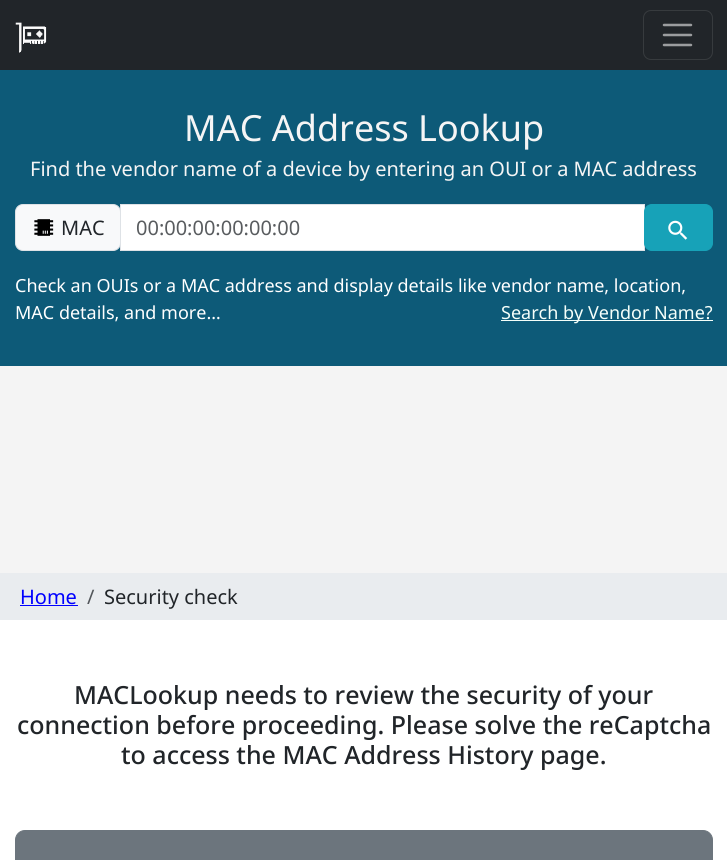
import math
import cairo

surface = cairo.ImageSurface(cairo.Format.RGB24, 727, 860)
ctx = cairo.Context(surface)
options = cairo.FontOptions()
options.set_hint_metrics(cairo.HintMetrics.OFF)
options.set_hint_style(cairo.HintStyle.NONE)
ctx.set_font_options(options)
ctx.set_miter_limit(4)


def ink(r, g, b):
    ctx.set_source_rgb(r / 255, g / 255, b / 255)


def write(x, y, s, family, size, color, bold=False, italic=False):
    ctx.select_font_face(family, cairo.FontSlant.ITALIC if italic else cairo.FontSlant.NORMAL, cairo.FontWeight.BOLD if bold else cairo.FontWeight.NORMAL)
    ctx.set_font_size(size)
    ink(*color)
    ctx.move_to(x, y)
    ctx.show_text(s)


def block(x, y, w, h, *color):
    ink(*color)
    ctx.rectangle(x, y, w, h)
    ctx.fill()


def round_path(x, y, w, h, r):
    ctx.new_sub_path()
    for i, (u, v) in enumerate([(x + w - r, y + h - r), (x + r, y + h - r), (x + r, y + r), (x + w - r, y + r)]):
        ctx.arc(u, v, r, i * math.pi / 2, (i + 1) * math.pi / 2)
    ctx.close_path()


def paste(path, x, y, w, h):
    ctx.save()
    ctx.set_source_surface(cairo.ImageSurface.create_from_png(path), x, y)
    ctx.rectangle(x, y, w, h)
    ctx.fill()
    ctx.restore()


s1 = dict(family="Noto Sans", size=36, color=(245, 245, 245))
s2 = dict(family="Noto Sans", size=20, color=(245, 245, 245))
s3 = dict(family="Noto Sans", size=20, color=(33, 37, 41))
s4 = dict(family="Noto Sans", size=20, color=(89, 92, 95))
s5 = dict(family="Noto Sans", size=18, color=(255, 255, 255))
s6 = dict(family="Noto Sans", size=18, color=(245, 255, 250))
s7 = dict(family="Noto Sans", size=20, color=(0, 0, 255))
s8 = dict(family="Noto Sans", size=20, color=(83, 87, 91))
s9 = dict(family="Noto Sans Medium", size=25, color=(33, 37, 41))

ink(255, 255, 255)
ctx.paint()
block(0, 0, 727, 70, 33, 37, 41)
paste("pic1.png", 15, 22, 32, 31)
round_path(643.5, 10.5, 69, 49, 7.5)
ink(55, 59, 62)
ctx.set_line_width(1)
ctx.stroke()
ctx.new_path()
ctx.move_to(664, 25)
ctx.line_to(691, 25)
ctx.move_to(664, 35)
ctx.line_to(691, 35)
ctx.move_to(664, 45)
ctx.line_to(691, 45)
ink(155, 157, 159)
ctx.set_line_width(2.5)
ctx.set_line_cap(cairo.LineCap.ROUND)
ctx.stroke()
block(0, 70, 727, 296, 13, 90, 120)
write(184, 141, "MAC Address Lookup", **s1)
write(30, 176, "Find the vendor name of a device by entering an OUI or a MAC address", **s2)
ink(248, 249, 250)
round_path(15.5, 204.5, 105, 46, 7.5)
ctx.fill_preserve()
ink(222, 226, 230)
ctx.set_line_width(1)
ctx.set_line_cap(cairo.LineCap.BUTT)
ctx.stroke()
paste("pic2.png", 34, 219, 20, 17)
write(61, 235, "MAC", **s3)
ink(255, 255, 255)
ctx.rectangle(120.5, 204.5, 524, 46)
ctx.fill_preserve()
ink(222, 226, 230)
ctx.stroke()
write(136, 235, "00:00:00:00:00:00", **s4)
ink(23, 162, 184)
round_path(644.5, 204.5, 68, 46, 7.5)
ctx.fill_preserve()
ctx.stroke()
paste("pic3.png", 668, 220, 20, 20)
write(15, 292, "Check an OUIs or a MAC address and display details like vendor name, location,", **s5)
write(15, 319, "MAC details, and more…", **s5)
block(501, 320, 212, 1, 245, 255, 250)
write(501, 319, "Search by Vendor Name?", **s6)
block(0, 366, 727, 207, 244, 244, 244)
block(0, 573, 727, 47, 233, 236, 239)
write(20, 604, "Home", **s7)
block(20, 605, 58, 1, 0, 0, 255)
write(87, 604, "/", **s8)
write(104, 604, "Security check", **s3)
write(74, 704, "MACLookup needs to review the security of your", **s9)
write(17, 734, "connection before proceeding. Please solve the reCaptcha", **s9)
write(121, 764, "to access the MAC Address History page.", **s9)
ink(108, 117, 125)
round_path(15.5, 830.5, 697, 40, 9.5)
ctx.fill_preserve()
ctx.stroke()
surface.write_to_png("screenshot.png")
